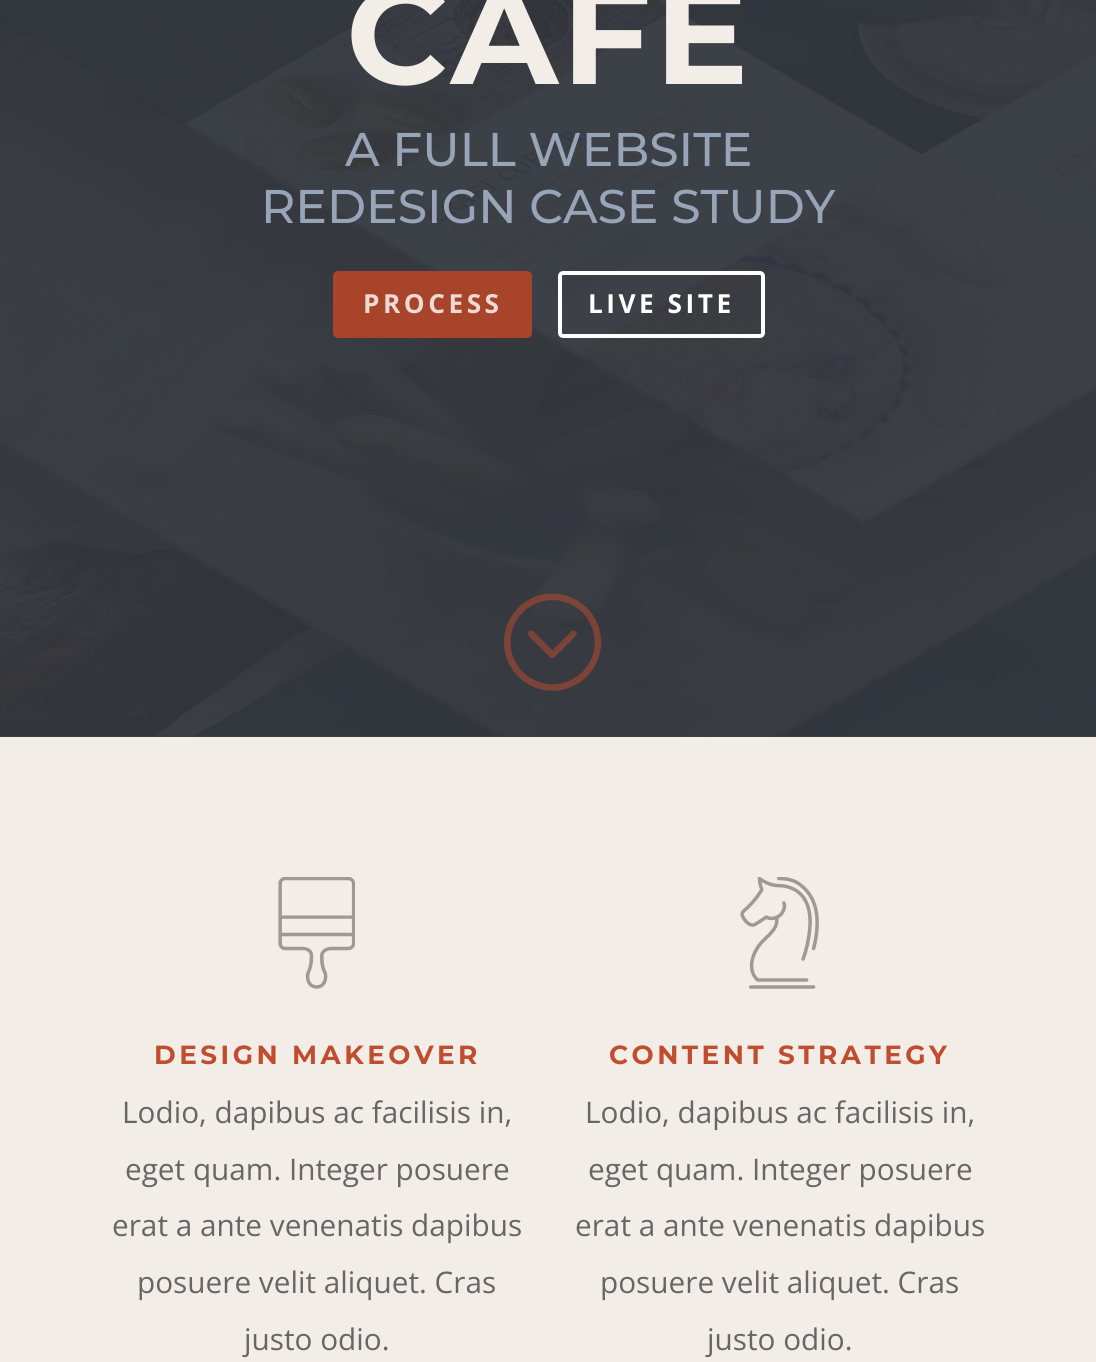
import math
import cairo

surface = cairo.ImageSurface(cairo.Format.RGB24, 1096, 1362)
ctx = cairo.Context(surface)
options = cairo.FontOptions()
options.set_hint_metrics(cairo.HintMetrics.OFF)
options.set_hint_style(cairo.HintStyle.NONE)
ctx.set_font_options(options)
ctx.set_miter_limit(4)


def ink(r, g, b):
    ctx.set_source_rgb(r / 255, g / 255, b / 255)


def write(x, y, s, family, size, color, bold=False, italic=False):
    ctx.select_font_face(family, cairo.FontSlant.ITALIC if italic else cairo.FontSlant.NORMAL, cairo.FontWeight.BOLD if bold else cairo.FontWeight.NORMAL)
    ctx.set_font_size(size)
    ink(*color)
    ctx.move_to(x, y)
    ctx.show_text(s)


def write_spaced(x, y, s, letter, word):
    ctx.move_to(x, y)
    for ch in s:
        ctx.show_text(ch)
        ctx.rel_move_to(letter + word * (ch == ' '), 0)


def block(x, y, w, h, *color):
    ink(*color)
    ctx.rectangle(x, y, w, h)
    ctx.fill()


def round_path(x, y, w, h, r):
    ctx.new_sub_path()
    for i, (u, v) in enumerate([(x + w - r, y + h - r), (x + r, y + h - r), (x + r, y + r), (x + w - r, y + r)]):
        ctx.arc(u, v, r, i * math.pi / 2, (i + 1) * math.pi / 2)
    ctx.close_path()


def paste(path, x, y, w, h):
    ctx.save()
    ctx.set_source_surface(cairo.ImageSurface.create_from_png(path), x, y)
    ctx.rectangle(x, y, w, h)
    ctx.fill()
    ctx.restore()


s1 = dict(family="Montserrat Medium", size=47.25, color=(152, 165, 185))
s2 = dict(family="Open Sans", size=29.75, color=(102, 102, 102))

ink(60, 64, 71)
ctx.paint()
paste("pic1.png", 0, 0, 1096, 737)
ctx.select_font_face("Montserrat", cairo.FontSlant.NORMAL, cairo.FontWeight.BOLD)
ctx.set_font_size(140)
ink(243, 237, 231)
write_spaced(346, 84, "CAFÉ", 3.5, 0)
write(345, 166, "A FULL WEBSITE", **s1)
write(261, 223, "REDESIGN CASE STUDY", **s1)
ink(168, 68, 41)
round_path(335, 273, 195, 63, 3)
ctx.fill_preserve()
ctx.set_line_width(4)
ctx.stroke()
ctx.select_font_face("Open Sans", cairo.FontSlant.NORMAL, cairo.FontWeight.BOLD)
ctx.set_font_size(26.25)
ink(238, 218, 212)
write_spaced(363, 313, "PROCESS", 3.5, 0)
round_path(560, 273, 203, 63, 3)
ink(255, 255, 255)
ctx.stroke()
write_spaced(588, 313, "LIVE SITE", 3.5, 0)
paste("pic2.png", 504, 593, 98, 98)
block(0, 737, 1096, 625, 243, 237, 231)
paste("pic3.png", 278, 877, 77, 112)
ctx.select_font_face("Montserrat", cairo.FontSlant.NORMAL, cairo.FontWeight.BOLD)
ink(191, 77, 46)
write_spaced(154, 1064, "DESIGN MAKEOVER", 3.5, 0)
write(122, 1123, "Lodio, dapibus ac facilisis in,", **s2)
write(125, 1180, "eget quam. Integer posuere", **s2)
write(112, 1236, "erat a ante venenatis dapibus", **s2)
write(137, 1293, "posuere velit aliquet. Cras", **s2)
write(244, 1350, "justo odio.", **s2)
paste("pic4.png", 740, 877, 79, 112)
ctx.select_font_face("Montserrat", cairo.FontSlant.NORMAL, cairo.FontWeight.BOLD)
ctx.set_font_size(26.25)
ink(191, 77, 46)
write_spaced(609, 1064, "CONTENT STRATEGY", 3.5, 0)
write(585, 1123, "Lodio, dapibus ac facilisis in,", **s2)
write(588, 1180, "eget quam. Integer posuere", **s2)
write(575, 1236, "erat a ante venenatis dapibus", **s2)
write(600, 1293, "posuere velit aliquet. Cras", **s2)
write(707, 1350, "justo odio.", **s2)
surface.write_to_png("screenshot.png")
